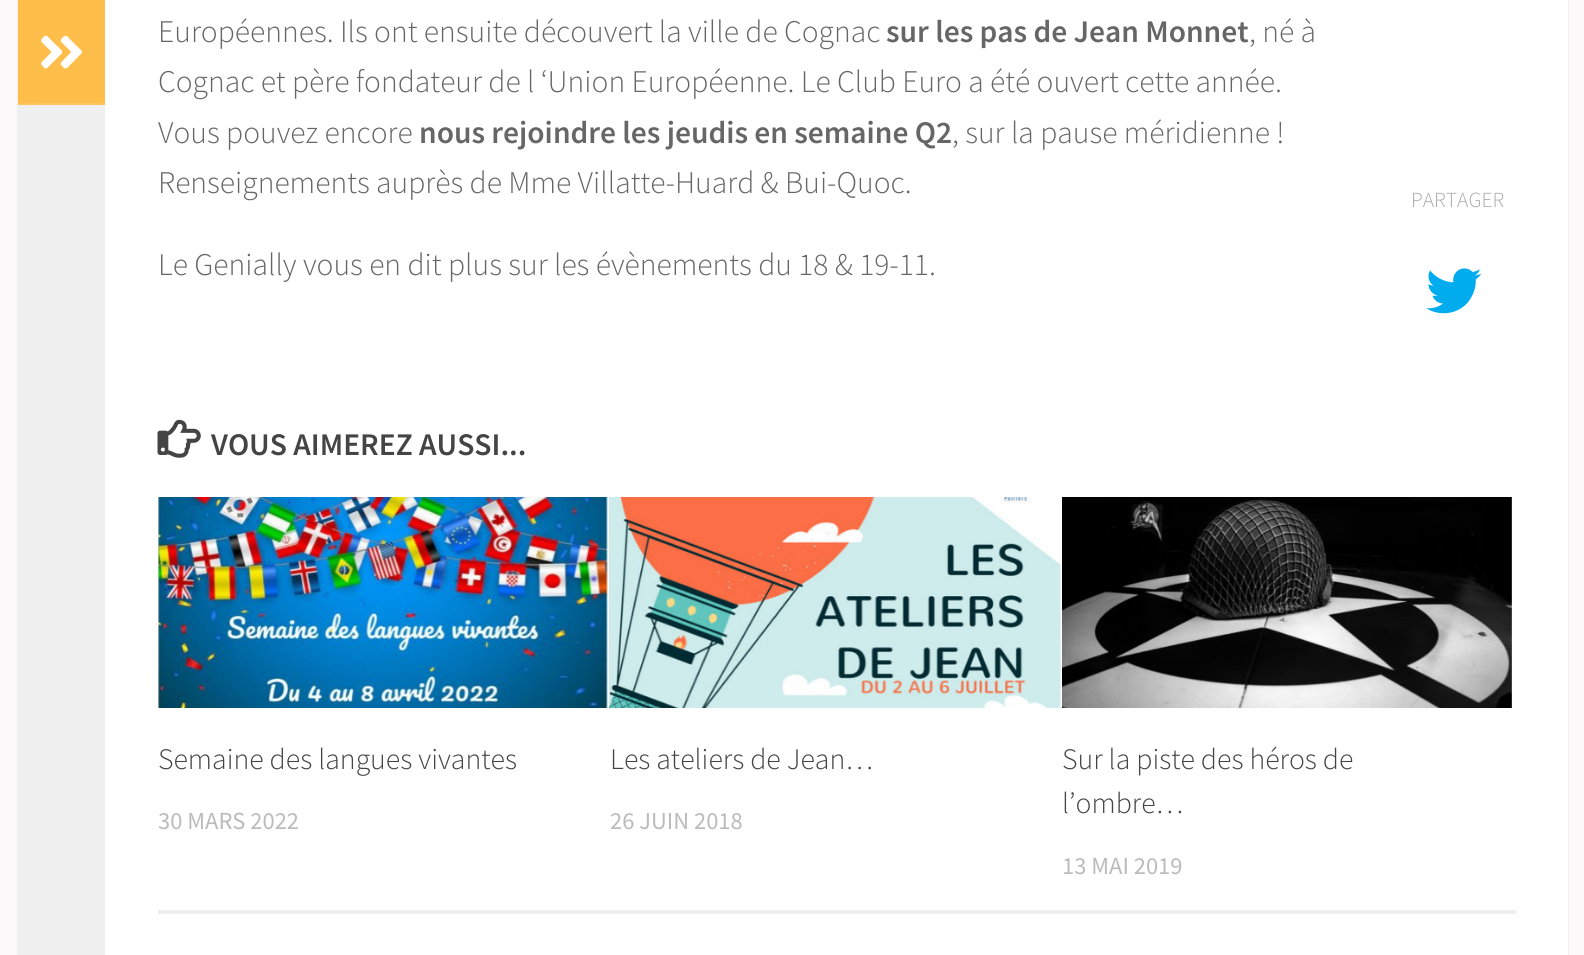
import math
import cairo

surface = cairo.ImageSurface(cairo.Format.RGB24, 1584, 955)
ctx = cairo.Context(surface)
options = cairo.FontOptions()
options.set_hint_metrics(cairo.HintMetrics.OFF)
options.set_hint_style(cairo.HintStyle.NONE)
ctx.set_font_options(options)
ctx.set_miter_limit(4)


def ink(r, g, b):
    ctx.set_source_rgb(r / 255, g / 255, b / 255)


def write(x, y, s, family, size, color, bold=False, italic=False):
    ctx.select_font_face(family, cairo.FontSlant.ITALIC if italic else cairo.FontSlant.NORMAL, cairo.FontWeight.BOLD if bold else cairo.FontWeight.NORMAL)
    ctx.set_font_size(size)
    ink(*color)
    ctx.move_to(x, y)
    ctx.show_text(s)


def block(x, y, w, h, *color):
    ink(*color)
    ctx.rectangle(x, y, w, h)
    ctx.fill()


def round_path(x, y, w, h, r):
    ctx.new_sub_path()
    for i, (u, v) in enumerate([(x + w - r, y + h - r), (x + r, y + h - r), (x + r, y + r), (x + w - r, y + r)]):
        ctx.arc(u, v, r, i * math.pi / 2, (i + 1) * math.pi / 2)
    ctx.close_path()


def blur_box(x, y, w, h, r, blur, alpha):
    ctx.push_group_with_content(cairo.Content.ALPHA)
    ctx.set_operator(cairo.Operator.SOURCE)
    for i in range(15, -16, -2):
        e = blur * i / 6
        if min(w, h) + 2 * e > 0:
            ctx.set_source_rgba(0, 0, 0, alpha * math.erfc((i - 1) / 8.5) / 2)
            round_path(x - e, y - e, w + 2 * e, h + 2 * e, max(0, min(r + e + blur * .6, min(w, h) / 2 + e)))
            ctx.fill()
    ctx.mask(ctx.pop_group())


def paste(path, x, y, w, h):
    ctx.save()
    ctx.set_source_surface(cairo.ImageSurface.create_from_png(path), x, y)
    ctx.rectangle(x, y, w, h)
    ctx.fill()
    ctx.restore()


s1 = dict(family="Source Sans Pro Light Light", size=31.5, color=(102, 102, 102))
s2 = dict(family="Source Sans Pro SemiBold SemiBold", size=31.5, color=(102, 102, 102))
s3 = dict(family="Source Sans Pro Light Light", size=21.5, color=(170, 170, 170))
s4 = dict(family="Source Sans Pro SemiBold SemiBold", size=31.5, color=(68, 68, 68))
s5 = dict(family="Source Sans Pro Light Light", size=29.75, color=(68, 68, 68))
s6 = dict(family="Source Sans Pro", size=24.5, color=(187, 187, 187))

ink(251, 249, 250)
ctx.paint()
ink(0, 0, 0)
blur_box(18, -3, 1550, 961, 0, 1, 0.1)
block(105, 0, 1463, 955, 255, 255, 255)
block(18, 105, 87, 850, 240, 240, 240)
block(18, 0, 87, 103, 255, 189, 74)
block(18, 103, 87, 2, 255, 196, 92)
paste("pic1.png", 41, 35, 41, 34)
write(158, 42, "Européennes. Ils ont ensuite découvert la ville de Cognac", **s1)
write(886, 42, "sur les pas de Jean Monnet", **s2)
write(1249, 42, ", né à", **s1)
write(158, 92, "Cognac et père fondateur de l ‘Union Européenne. Le Club Euro a été ouvert cette année.", **s1)
write(158, 143, "Vous pouvez encore", **s1)
write(419, 143, "nous rejoindre les jeudis en semaine Q2", **s2)
write(952, 143, ", sur la pause méridienne !", **s1)
write(158, 193, "Renseignements auprès de Mme Villatte-Huard & Bui-Quoc.", **s1)
write(158, 275, "Le Genially vous en dit plus sur les évènements du 18 & 19-11.", **s1)
write(1411, 207, "PARTAGER", **s3)
paste("pic2.png", 1426, 268, 56, 46)
paste("pic3.png", 157, 419, 44, 39)
write(211, 455, "VOUS AIMEREZ AUSSI...", **s4)
block(158, 910, 1358, 4, 238, 238, 238)
paste("pic4.png", 158, 497, 450, 211)
write(158, 769, "Semaine des langues vivantes", **s5)
write(158, 829, "30 MARS 2022", **s6)
paste("pic5.png", 609, 497, 452, 211)
write(610, 769, "Les ateliers de Jean…", **s5)
write(610, 829, "26 JUIN 2018", **s6)
paste("pic6.png", 1062, 497, 450, 211)
write(1062, 769, "Sur la piste des héros de", **s5)
write(1062, 813, "l’ombre…", **s5)
write(1062, 874, "13 MAI 2019", **s6)
surface.write_to_png("screenshot.png")
